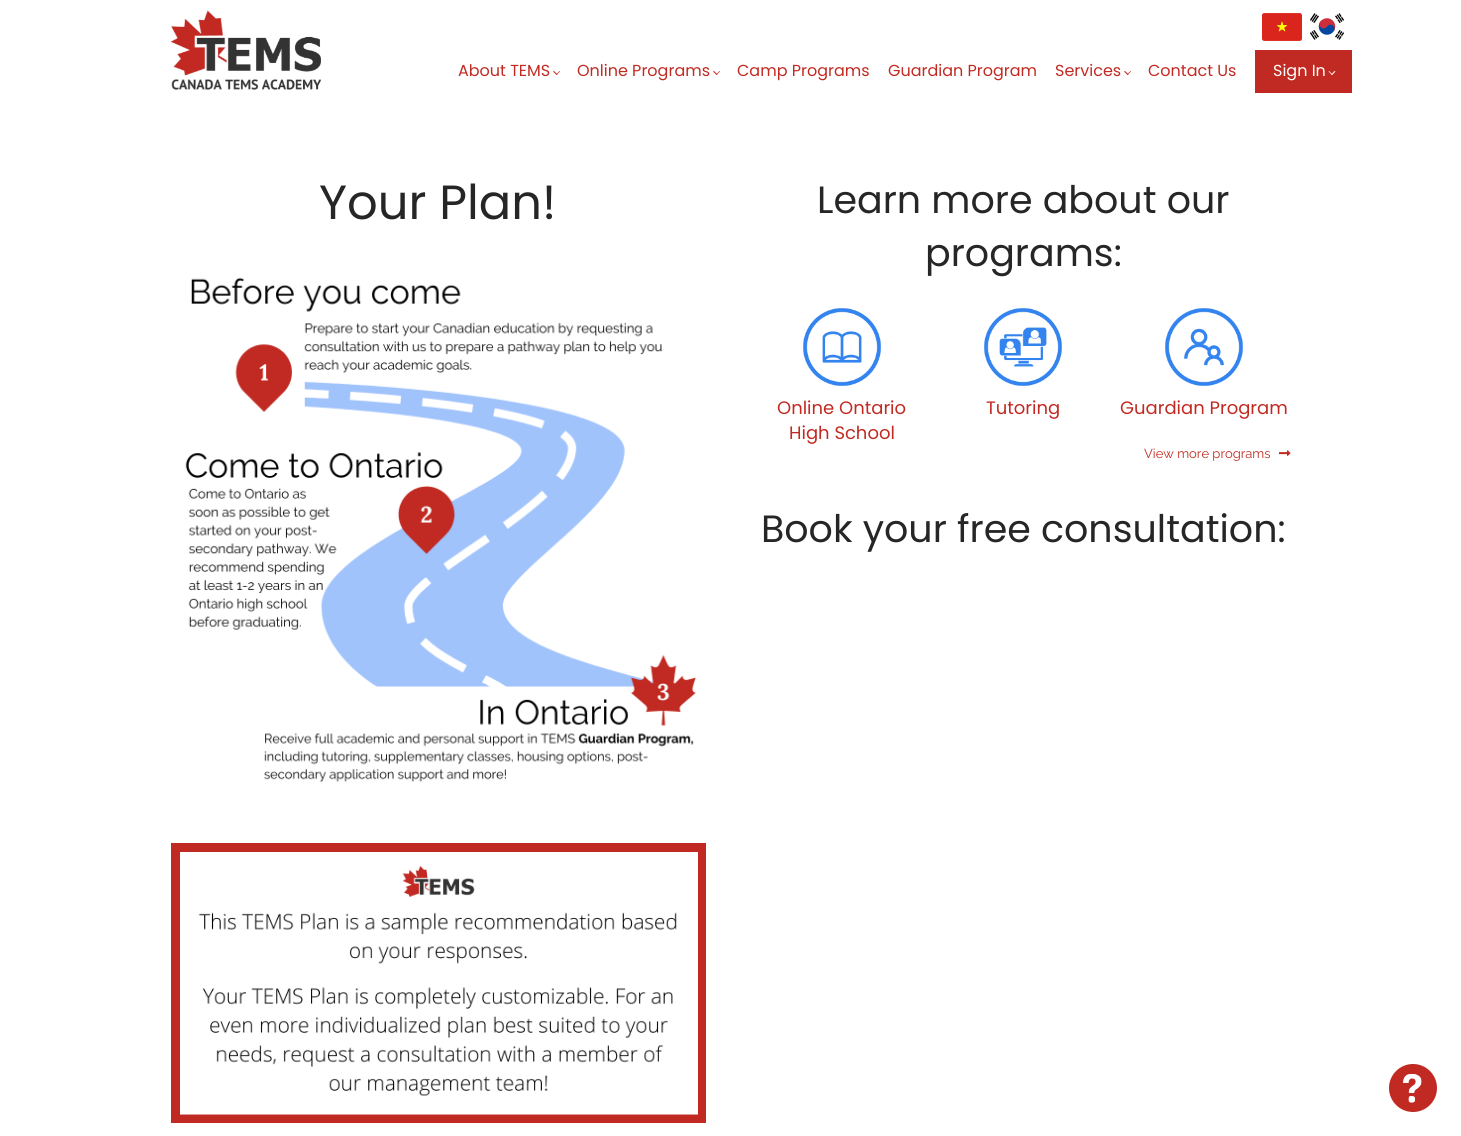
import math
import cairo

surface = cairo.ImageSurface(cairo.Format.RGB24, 1461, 1136)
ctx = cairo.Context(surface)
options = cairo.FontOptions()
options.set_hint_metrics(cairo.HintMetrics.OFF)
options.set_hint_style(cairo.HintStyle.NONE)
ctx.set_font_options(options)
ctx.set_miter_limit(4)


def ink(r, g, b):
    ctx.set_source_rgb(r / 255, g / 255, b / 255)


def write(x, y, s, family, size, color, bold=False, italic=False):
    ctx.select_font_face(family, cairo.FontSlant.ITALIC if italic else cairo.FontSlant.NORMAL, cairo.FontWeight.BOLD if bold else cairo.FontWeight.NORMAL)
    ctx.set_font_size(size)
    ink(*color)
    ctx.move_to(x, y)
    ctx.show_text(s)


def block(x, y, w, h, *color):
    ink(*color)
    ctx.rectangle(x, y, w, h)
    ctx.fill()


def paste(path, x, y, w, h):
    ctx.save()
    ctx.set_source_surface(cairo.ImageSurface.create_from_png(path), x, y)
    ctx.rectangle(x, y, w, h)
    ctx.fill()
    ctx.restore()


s1 = dict(family="Poppins", size=16, color=(193, 42, 34))
s2 = dict(family="Poppins", size=16, color=(255, 255, 255))
s3 = dict(family="Poppins", size=48, color=(38, 38, 38))
s4 = dict(family="Poppins", size=38, color=(38, 38, 38))
s5 = dict(family="Poppins", size=18, color=(193, 42, 34))
s6 = dict(family="Raleway", size=13, color=(193, 42, 34))

ink(255, 255, 255)
ctx.paint()
paste("pic1.png", 170, 10, 151, 80)
paste("pic2.png", 1262, 13, 40, 28)
paste("pic3.png", 1310, 13, 35, 27)
write(458, 76, "About TEMS", **s1)
ctx.new_path()
ctx.move_to(560, 71.5)
ctx.line_to(556.5, 75)
ctx.line_to(556, 74.5)
ctx.line_to(559.5, 71)
ctx.close_path()
ctx.fill()
ctx.new_path()
ctx.move_to(557.5, 74.5)
ctx.line_to(556.5, 75)
ctx.line_to(553, 71.5)
ctx.line_to(554, 71)
ctx.close_path()
ctx.fill()
write(577, 76, "Online Programs", **s1)
ctx.new_path()
ctx.move_to(720, 71.5)
ctx.line_to(716.5, 75)
ctx.line_to(716, 74.5)
ctx.line_to(719.5, 71)
ctx.close_path()
ctx.fill()
ctx.new_path()
ctx.move_to(717.5, 74.5)
ctx.line_to(716.5, 75)
ctx.line_to(713, 71.5)
ctx.line_to(714, 71)
ctx.close_path()
ctx.fill()
write(737, 76, "Camp Programs", **s1)
write(888, 76, "Guardian Program", **s1)
write(1055, 76, "Services", **s1)
ctx.new_path()
ctx.move_to(1131, 71.5)
ctx.line_to(1127.5, 75)
ctx.line_to(1127, 74.5)
ctx.line_to(1130.5, 71)
ctx.close_path()
ctx.fill()
ctx.new_path()
ctx.move_to(1128.5, 74.5)
ctx.line_to(1127.5, 75)
ctx.line_to(1124, 71.5)
ctx.line_to(1125, 71)
ctx.close_path()
ctx.fill()
write(1148, 76, "Contact Us", **s1)
block(1255, 50, 97, 43, 193, 42, 34)
write(1273, 76, "Sign In", **s2)
ctx.new_path()
ctx.move_to(1335.5, 71.5)
ctx.line_to(1332, 75)
ctx.line_to(1331, 74.5)
ctx.line_to(1334.5, 71)
ctx.close_path()
ctx.fill()
ctx.new_path()
ctx.move_to(1332.5, 74.5)
ctx.line_to(1332, 75)
ctx.line_to(1328.5, 71.5)
ctx.line_to(1329, 71)
ctx.close_path()
ctx.fill()
write(319, 219, "Your Plan!", **s3)
paste("pic4.png", 185, 277, 512, 506)
paste("pic5.png", 171, 843, 535, 280)
write(817, 213, "Learn more about our", **s4)
write(925, 266, "programs:", **s4)
paste("pic6.png", 803, 308, 78, 78)
write(777, 414, "Online Ontario", **s5)
write(789, 439, "High School", **s5)
paste("pic7.png", 984, 308, 78, 78)
write(986, 414, "Tutoring", **s5)
paste("pic8.png", 1165, 308, 78, 78)
write(1120, 414, "Guardian Program", **s5)
write(1144, 458, "View more programs", **s6)
paste("pic9.png", 1279, 450, 12, 6)
write(761, 542, "Book your free consultation:", **s4)
ink(193, 42, 34)
ctx.new_path()
ctx.arc(1413, 1088, 24, 0, 2 * math.pi)
ctx.fill()
paste("pic10.png", 1403, 1074, 19, 29)
surface.write_to_png("screenshot.png")
